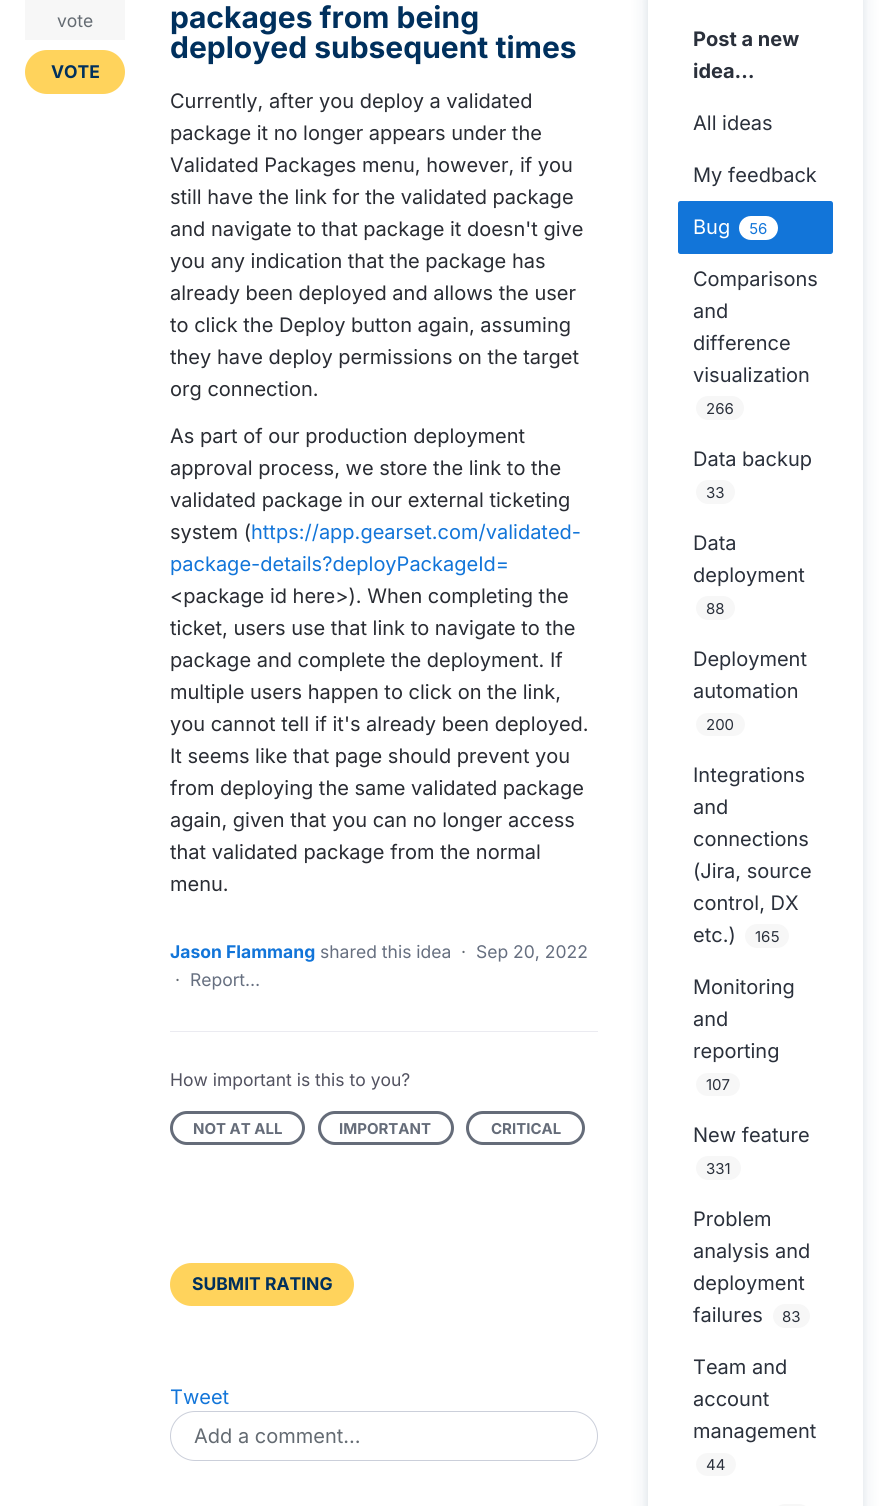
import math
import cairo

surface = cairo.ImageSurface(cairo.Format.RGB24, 887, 1506)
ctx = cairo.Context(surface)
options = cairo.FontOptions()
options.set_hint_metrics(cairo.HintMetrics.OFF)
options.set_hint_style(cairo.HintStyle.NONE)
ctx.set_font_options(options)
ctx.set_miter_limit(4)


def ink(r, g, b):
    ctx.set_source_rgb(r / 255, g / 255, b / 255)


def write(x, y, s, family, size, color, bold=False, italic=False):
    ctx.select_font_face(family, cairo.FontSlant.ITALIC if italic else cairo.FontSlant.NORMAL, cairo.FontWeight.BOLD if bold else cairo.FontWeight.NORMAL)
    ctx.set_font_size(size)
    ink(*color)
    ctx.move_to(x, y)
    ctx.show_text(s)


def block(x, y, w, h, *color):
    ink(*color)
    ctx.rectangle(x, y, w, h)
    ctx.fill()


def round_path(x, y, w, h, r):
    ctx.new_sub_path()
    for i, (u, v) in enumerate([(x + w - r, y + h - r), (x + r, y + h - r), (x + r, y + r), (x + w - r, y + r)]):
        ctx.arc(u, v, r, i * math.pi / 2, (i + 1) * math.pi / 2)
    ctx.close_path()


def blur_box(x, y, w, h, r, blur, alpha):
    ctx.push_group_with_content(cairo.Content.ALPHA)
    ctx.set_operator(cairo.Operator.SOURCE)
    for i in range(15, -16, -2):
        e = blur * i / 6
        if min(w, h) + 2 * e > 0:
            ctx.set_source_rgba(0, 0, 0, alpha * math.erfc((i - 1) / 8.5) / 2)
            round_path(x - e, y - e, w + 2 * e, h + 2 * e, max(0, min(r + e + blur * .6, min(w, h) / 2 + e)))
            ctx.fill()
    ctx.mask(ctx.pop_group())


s1 = dict(family="Inter", size=17.5, color=(100, 107, 114))
s2 = dict(family="Inter", size=17.5, color=(0, 48, 93), bold=True)
s3 = dict(family="Inter", size=30, color=(0, 48, 93), bold=True)
s4 = dict(family="Inter", size=20, color=(41, 44, 51))
s5 = dict(family="Inter", size=20, color=(18, 117, 217))
s6 = dict(family="Inter", size=17.5, color=(18, 117, 217), bold=True)
s7 = dict(family="Inter", size=17.5, color=(102, 111, 128))
s8 = dict(family="Inter", size=17.5, color=(82, 82, 96))
s9 = dict(family="Inter", size=15, color=(101, 108, 121), bold=True)
s10 = dict(family="Inter", size=20, color=(100, 107, 114))
s11 = dict(family="Inter", size=20, color=(42, 48, 59), bold=True)
s12 = dict(family="Inter", size=20, color=(42, 48, 59))
s13 = dict(family="Inter", size=20, color=(255, 255, 255))
s14 = dict(family="Inter", size=15, color=(18, 117, 217))
s15 = dict(family="Inter", size=15, color=(42, 48, 59))

ink(255, 255, 255)
ctx.paint()
block(25, 0, 100, 40, 247, 247, 247)
write(57, 27, "vote", **s1)
ink(255, 211, 92)
round_path(25, 50, 100, 44, 22)
ctx.fill()
write(51, 78, "VOTE", **s2)
write(170, 28, "packages from being", **s3)
write(170, 58, "deployed subsequent times", **s3)
write(170, 108, "Currently, after you deploy a validated", **s4)
write(170, 140, "package it no longer appears under the", **s4)
write(170, 172, "Validated Packages menu, however, if you", **s4)
write(170, 204, "still have the link for the validated package", **s4)
write(170, 236, "and navigate to that package it doesn't give", **s4)
write(170, 268, "you any indication that the package has", **s4)
write(170, 300, "already been deployed and allows the user", **s4)
write(170, 332, "to click the Deploy button again, assuming", **s4)
write(170, 364, "they have deploy permissions on the target", **s4)
write(170, 396, "org connection.", **s4)
write(170, 443, "As part of our production deployment", **s4)
write(170, 475, "approval process, we store the link to the", **s4)
write(170, 507, "validated package in our external ticketing", **s4)
write(170, 539, "system (", **s4)
write(251, 539, "https://app.gearset.com/validated-", **s5)
write(170, 571, "package-details?deployPackageId=", **s5)
write(170, 603, "<package id here>). When completing the", **s4)
write(170, 635, "ticket, users use that link to navigate to the", **s4)
write(170, 667, "package and complete the deployment. If", **s4)
write(170, 699, "multiple users happen to click on the link,", **s4)
write(170, 731, "you cannot tell if it's already been deployed.", **s4)
write(170, 763, "It seems like that page should prevent you", **s4)
write(170, 795, "from deploying the same validated package", **s4)
write(170, 827, "again, given that you can no longer access", **s4)
write(170, 859, "that validated package from the normal", **s4)
write(170, 891, "menu.", **s4)
write(170, 958, "Jason Flammang", **s6)
write(320, 958, "shared this idea", **s7)
write(461, 958, "·", **s1)
write(476, 958, "Sep 20, 2022", **s7)
write(175, 986, "·", **s1)
write(190, 986, "Report…", **s7)
block(170, 1031, 428, 1, 235, 235, 241)
write(170, 1086, "How important is this to you?", **s8)
round_path(171.5, 1112.5, 132, 31, 15.5)
ink(101, 108, 121)
ctx.set_line_width(3)
ctx.stroke()
write(193, 1134, "NOT AT ALL", **s9)
round_path(319.5, 1112.5, 133, 31, 15.5)
ctx.stroke()
write(339, 1134, "IMPORTANT", **s9)
round_path(467.5, 1112.5, 116, 31, 15.5)
ctx.stroke()
write(491, 1134, "CRITICAL", **s9)
ink(255, 211, 92)
round_path(170, 1263, 184, 43, 21.5)
ctx.fill()
write(192, 1290, "SUBMIT RATING", **s2)
write(170, 1404, "Tweet", **s5)
round_path(170.5, 1411.5, 427, 49, 24.5)
ink(203, 207, 218)
ctx.set_line_width(1)
ctx.stroke()
write(194, 1443, "Add a comment…", **s10)
ink(0, 48, 93)
blur_box(649, -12, 212, 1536, 6, 4, 0.1)
blur_box(644, -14, 222, 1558, 11, 9, 0.08)
block(648, 0, 215, 1506, 255, 255, 255)
write(693, 46, "Post a new", **s11)
write(693, 78, "idea…", **s11)
write(693, 130, "All ideas", **s12)
write(693, 182, "My feedback", **s12)
ink(18, 117, 217)
round_path(678, 201, 155, 53, 2.5)
ctx.fill()
write(693, 234, "Bug", **s13)
round_path(739, 216, 39, 24, 12)
ctx.fill()
write(749, 234, "56", **s14)
write(693, 286, "Comparisons", **s12)
write(693, 318, "and", **s12)
write(693, 350, "difference", **s12)
write(693, 382, "visualization", **s12)
ink(247, 247, 247)
round_path(696, 396, 48, 24, 12)
ctx.fill()
write(706, 414, "266", **s15)
write(693, 466, "Data backup", **s12)
ink(247, 247, 247)
round_path(696, 480, 39, 24, 12)
ctx.fill()
write(706, 498, "33", **s15)
write(693, 550, "Data", **s12)
write(693, 582, "deployment", **s12)
ink(247, 247, 247)
round_path(696, 596, 39, 24, 12)
ctx.fill()
write(706, 614, "88", **s15)
write(693, 666, "Deployment", **s12)
write(693, 698, "automation", **s12)
ink(247, 247, 247)
round_path(696, 713, 49, 23, 11.5)
ctx.fill()
write(706, 730, "200", **s15)
write(693, 782, "Integrations", **s12)
write(693, 814, "and", **s12)
write(693, 846, "connections", **s12)
write(693, 878, "(Jira, source", **s12)
write(693, 910, "control, DX", **s12)
write(693, 942, "etc.)", **s12)
ink(247, 247, 247)
round_path(745, 924, 44, 24, 12)
ctx.fill()
write(755, 942, "165", **s15)
write(693, 994, "Monitoring", **s12)
write(693, 1026, "and", **s12)
write(693, 1058, "reporting", **s12)
ink(247, 247, 247)
round_path(696, 1073, 44, 23, 11.5)
ctx.fill()
write(706, 1090, "107", **s15)
write(693, 1142, "New feature", **s12)
ink(247, 247, 247)
round_path(696, 1156, 45, 24, 12)
ctx.fill()
write(706, 1174, "331", **s15)
write(693, 1226, "Problem", **s12)
write(693, 1258, "analysis and", **s12)
write(693, 1290, "deployment", **s12)
write(693, 1322, "failures", **s12)
ink(247, 247, 247)
round_path(773, 1304, 37, 24, 12)
ctx.fill()
write(782, 1322, "83", **s15)
write(693, 1374, "Team and", **s12)
write(693, 1406, "account", **s12)
write(693, 1438, "management", **s12)
ink(247, 247, 247)
round_path(696, 1453, 40, 23, 11.5)
ctx.fill()
write(706, 1470, "44", **s15)
ink(247, 247, 247)
round_path(773, 1504, 38, 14, 12)
ctx.fill()
surface.write_to_png("screenshot.png")
